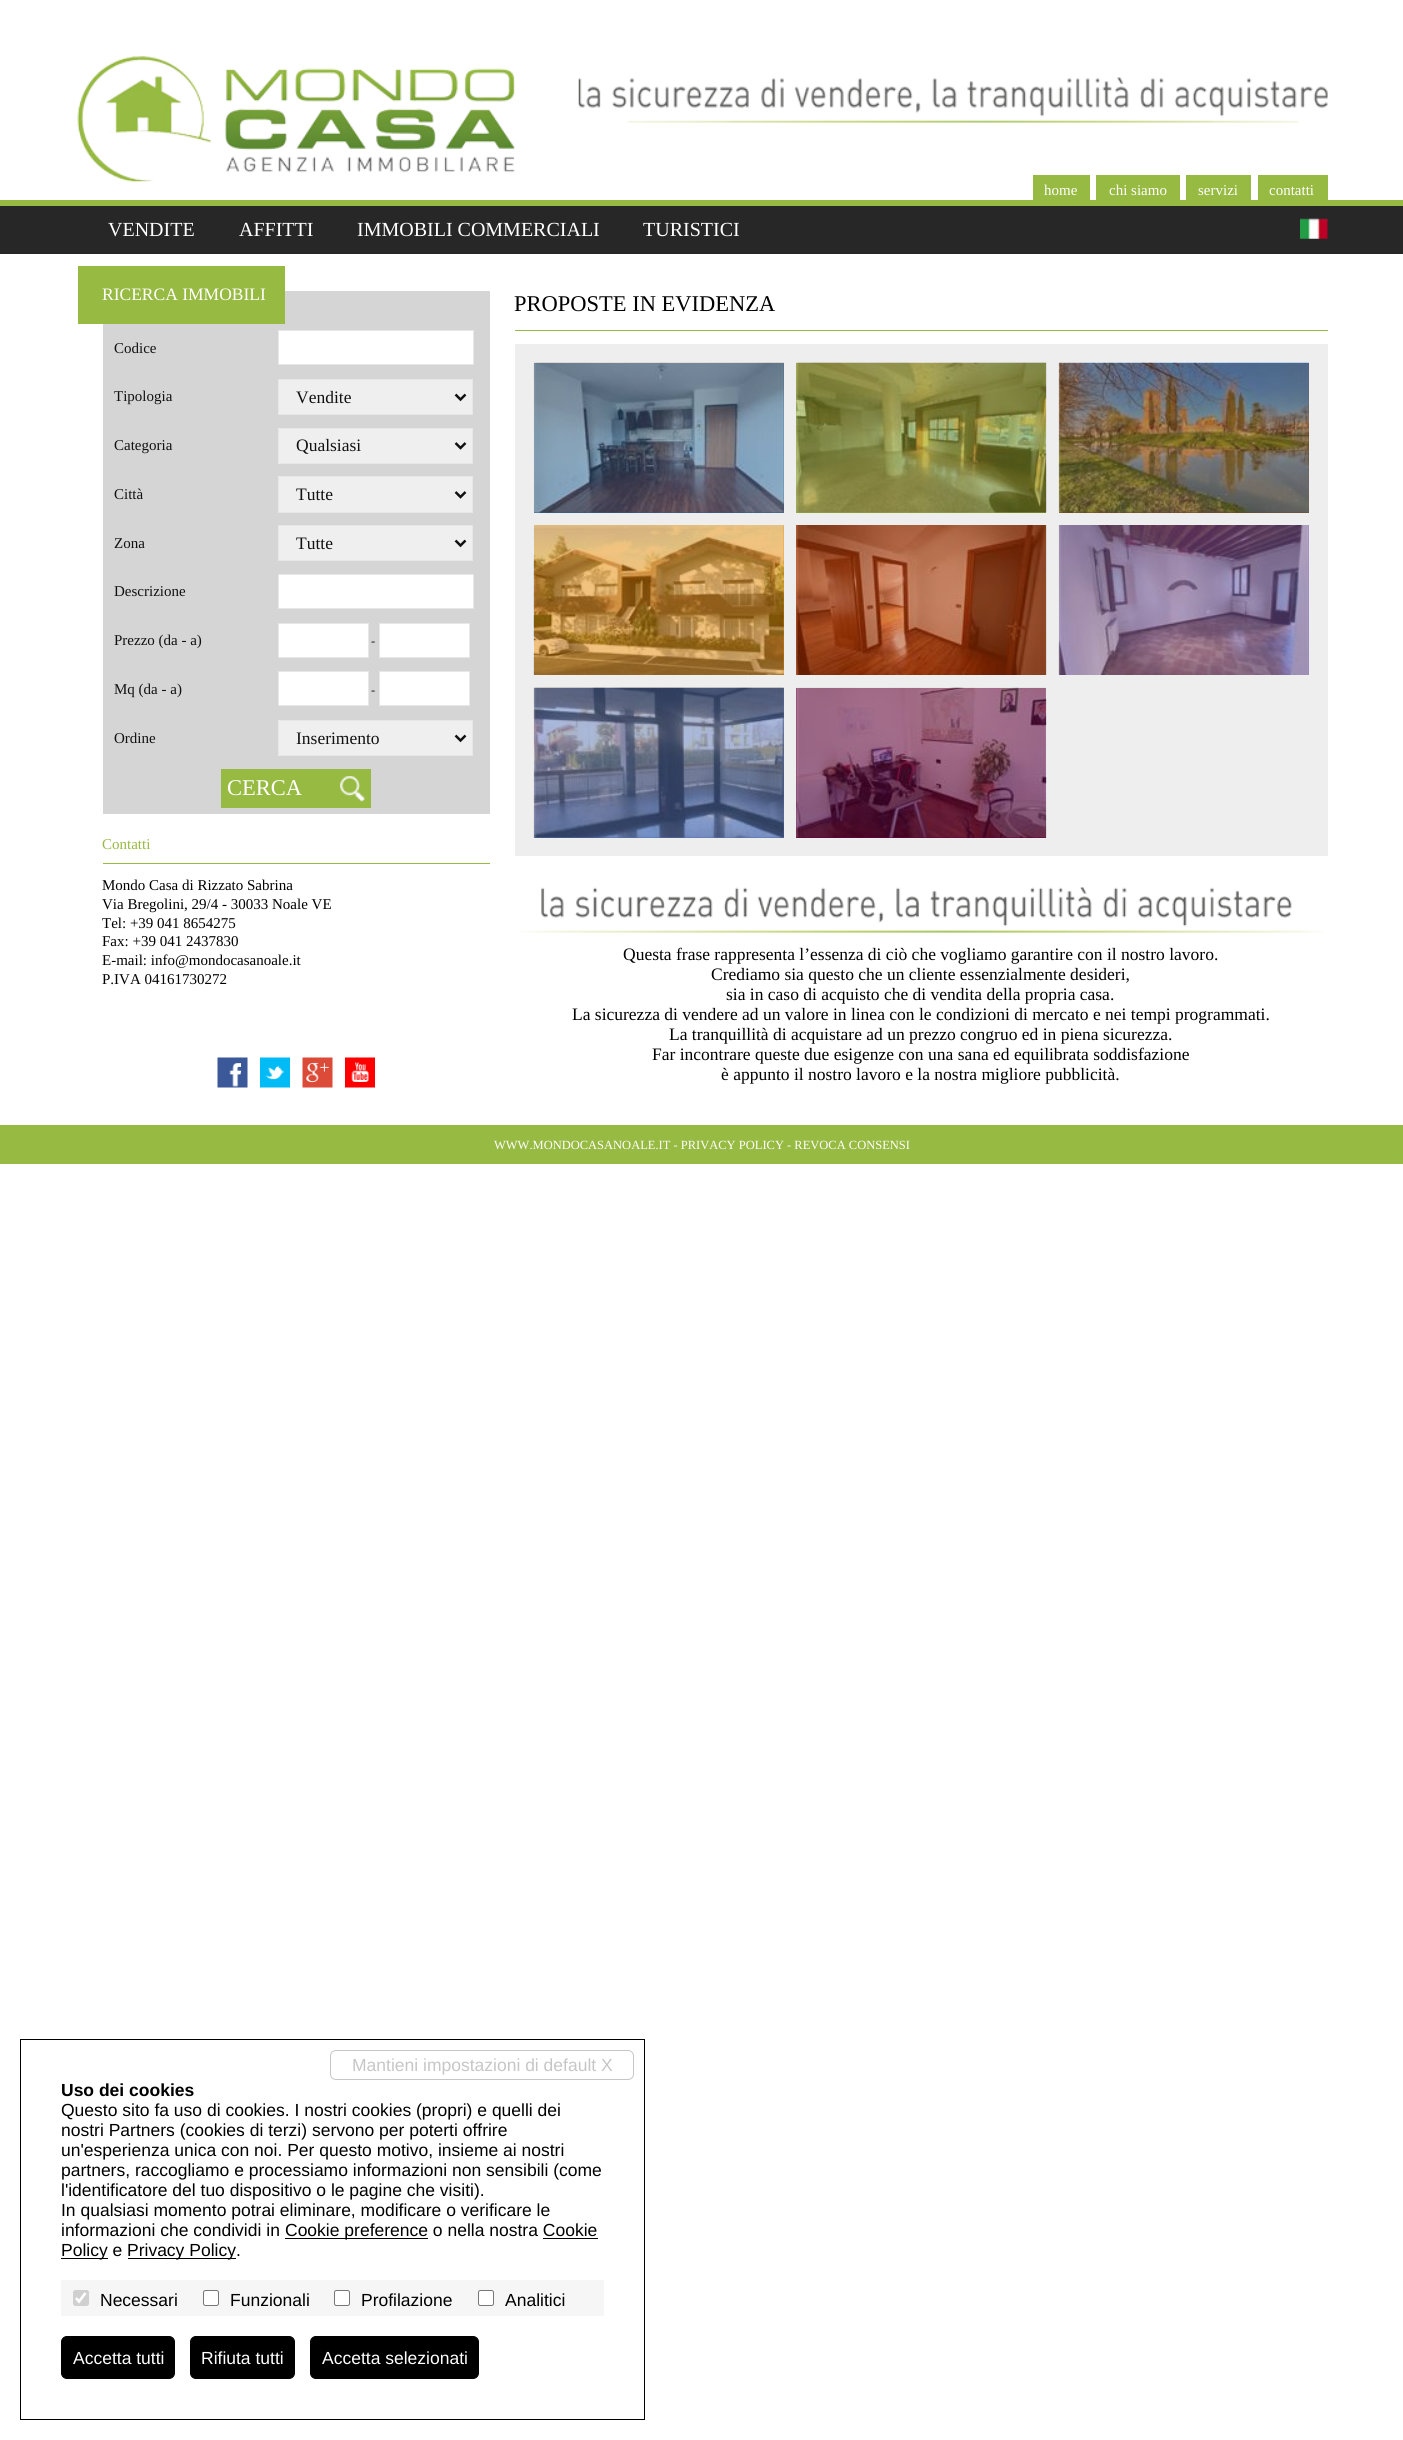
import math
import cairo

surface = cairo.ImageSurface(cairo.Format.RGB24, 1403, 2440)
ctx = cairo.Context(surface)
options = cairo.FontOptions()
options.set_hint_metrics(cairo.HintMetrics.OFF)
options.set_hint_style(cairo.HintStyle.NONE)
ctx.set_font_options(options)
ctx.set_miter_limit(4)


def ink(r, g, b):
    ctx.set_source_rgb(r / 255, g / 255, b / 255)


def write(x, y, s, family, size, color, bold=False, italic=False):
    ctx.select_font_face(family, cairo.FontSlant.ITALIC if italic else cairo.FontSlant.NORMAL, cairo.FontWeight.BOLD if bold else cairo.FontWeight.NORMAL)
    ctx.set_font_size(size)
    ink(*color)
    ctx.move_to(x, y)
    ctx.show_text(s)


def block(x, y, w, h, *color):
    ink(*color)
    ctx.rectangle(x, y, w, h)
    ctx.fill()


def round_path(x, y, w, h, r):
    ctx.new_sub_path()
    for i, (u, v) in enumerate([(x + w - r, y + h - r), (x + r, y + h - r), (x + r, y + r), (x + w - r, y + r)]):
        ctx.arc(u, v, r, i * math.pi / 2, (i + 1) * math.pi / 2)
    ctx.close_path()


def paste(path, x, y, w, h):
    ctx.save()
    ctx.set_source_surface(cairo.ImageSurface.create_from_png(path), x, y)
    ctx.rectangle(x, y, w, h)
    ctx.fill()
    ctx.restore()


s1 = dict(family="Liberation Serif", size=15, color=(255, 255, 255))
s2 = dict(family="Liberation Serif", size=20, color=(255, 255, 255))
s3 = dict(family="Liberation Serif", size=17.5, color=(255, 255, 255))
s4 = dict(family="Liberation Serif", size=15, color=(17, 17, 17))
s5 = dict(family="Liberation Serif", size=17.5, color=(17, 17, 17))
s6 = dict(family="Liberation Serif", size=12.5, color=(17, 17, 17))
s7 = dict(family="Liberation Serif", size=22.5, color=(255, 255, 255))
s8 = dict(family="Liberation Serif", size=15, color=(151, 186, 66))
s9 = dict(family="Liberation Serif", size=15, color=(0, 0, 0))
s10 = dict(family="Liberation Serif", size=22.5, color=(0, 0, 0))
s11 = dict(family="Liberation Serif", size=17.5, color=(0, 0, 0))
s12 = dict(family="Liberation Serif", size=12.5, color=(255, 255, 255))
s13 = dict(family="Liberation Sans", size=17.5, color=(198, 198, 198))
s14 = dict(family="Liberation Sans", size=17.5, color=(0, 0, 0), bold=True)
s15 = dict(family="Liberation Sans", size=17.5, color=(0, 0, 0))
s16 = dict(family="Liberation Sans", size=17.5, color=(255, 255, 255))

ink(255, 255, 255)
ctx.paint()
block(0, 200, 1403, 6, 151, 186, 66)
paste("pic1.png", 578, 77, 750, 46)
paste("pic2.png", 77, 56, 438, 126)
block(1033, 175, 57, 25, 151, 186, 66)
write(1044, 195, "home", **s1)
block(1096, 175, 84, 25, 151, 186, 66)
write(1109, 195, "chi siamo", **s1)
block(1186, 175, 65, 25, 151, 186, 66)
write(1198, 195, "servizi", **s1)
block(1258, 175, 70, 25, 151, 186, 66)
write(1269, 195, "contatti", **s1)
block(0, 206, 1403, 48, 39, 39, 39)
write(108, 236, "VENDITE", **s2)
write(239, 236, "AFFITTI", **s2)
write(357, 236, "IMMOBILI COMMERCIALI", **s2)
write(643, 236, "TURISTICI", **s2)
paste("pic3.png", 1300, 218, 28, 21)
block(103, 291, 387, 523, 213, 213, 213)
block(78, 266, 207, 58, 151, 186, 66)
write(102, 300, "RICERCA IMMOBILI", **s3)
write(114, 353, "Codice", **s4)
ink(255, 255, 255)
ctx.rectangle(278.5, 330.5, 195, 34)
ctx.fill_preserve()
ink(231, 231, 231)
ctx.set_line_width(1)
ctx.stroke()
write(114, 401, "Tipologia", **s4)
ink(239, 239, 239)
ctx.rectangle(278.5, 379.5, 194, 35)
ctx.fill_preserve()
ink(231, 231, 231)
ctx.stroke()
ctx.new_path()
ctx.move_to(455.5, 394.5)
ctx.line_to(460.5, 399.5)
ctx.line_to(465.5, 394.5)
ink(17, 17, 17)
ctx.set_line_width(2.5)
ctx.stroke()
write(296, 403, "Vendite", **s5)
write(114, 450, "Categoria", **s4)
ink(239, 239, 239)
ctx.rectangle(278.5, 428.5, 194, 35)
ctx.fill_preserve()
ink(231, 231, 231)
ctx.set_line_width(1)
ctx.stroke()
ctx.new_path()
ctx.move_to(455.5, 443)
ctx.line_to(460.5, 448)
ctx.line_to(465.5, 443)
ink(17, 17, 17)
ctx.set_line_width(2.5)
ctx.stroke()
write(296, 451, "Qualsiasi", **s5)
write(114, 499, "Città", **s4)
ink(239, 239, 239)
ctx.rectangle(278.5, 476.5, 194, 36)
ctx.fill_preserve()
ink(231, 231, 231)
ctx.set_line_width(1)
ctx.stroke()
ctx.new_path()
ctx.move_to(455.5, 492)
ctx.line_to(460.5, 497)
ctx.line_to(465.5, 492)
ink(17, 17, 17)
ctx.set_line_width(2.5)
ctx.stroke()
write(296, 500, "Tutte", **s5)
write(114, 548, "Zona", **s4)
ink(239, 239, 239)
ctx.rectangle(278.5, 525.5, 194, 35)
ctx.fill_preserve()
ink(231, 231, 231)
ctx.set_line_width(1)
ctx.stroke()
ctx.new_path()
ctx.move_to(455.5, 540.5)
ctx.line_to(460.5, 545.5)
ctx.line_to(465.5, 540.5)
ink(17, 17, 17)
ctx.set_line_width(2.5)
ctx.stroke()
write(296, 549, "Tutte", **s5)
write(114, 596, "Descrizione", **s4)
ink(255, 255, 255)
ctx.rectangle(278.5, 574.5, 195, 34)
ctx.fill_preserve()
ink(231, 231, 231)
ctx.set_line_width(1)
ctx.stroke()
write(114, 645, "Prezzo (da - a)", **s4)
ink(255, 255, 255)
ctx.rectangle(278.5, 623.5, 90, 34)
ctx.fill_preserve()
ink(231, 231, 231)
ctx.stroke()
write(371, 645, "-", **s6)
ink(255, 255, 255)
ctx.rectangle(379.5, 623.5, 90, 34)
ctx.fill_preserve()
ink(231, 231, 231)
ctx.stroke()
write(114, 694, "Mq (da - a)", **s4)
ink(255, 255, 255)
ctx.rectangle(278.5, 671.5, 90, 34)
ctx.fill_preserve()
ink(231, 231, 231)
ctx.stroke()
write(371, 694, "-", **s6)
ink(255, 255, 255)
ctx.rectangle(379.5, 671.5, 90, 34)
ctx.fill_preserve()
ink(231, 231, 231)
ctx.stroke()
write(114, 743, "Ordine", **s4)
ink(239, 239, 239)
ctx.rectangle(278.5, 720.5, 194, 35)
ctx.fill_preserve()
ink(231, 231, 231)
ctx.stroke()
ctx.new_path()
ctx.move_to(455.5, 735.5)
ctx.line_to(460.5, 740.5)
ctx.line_to(465.5, 735.5)
ink(17, 17, 17)
ctx.set_line_width(2.5)
ctx.stroke()
write(296, 744, "Inserimento", **s5)
block(221, 769, 150, 39, 151, 186, 66)
paste("pic4.png", 340, 776, 25, 26)
write(227, 795, "CERCA", **s7)
block(103, 863, 387, 1, 151, 186, 66)
write(102, 849, "Contatti", **s8)
write(102, 890, "Mondo Casa di Rizzato Sabrina", **s9)
write(102, 909, "Via Bregolini, 29/4 - 30033 Noale VE", **s9)
write(102, 928, "Tel: +39 041 8654275", **s9)
write(102, 946, "Fax: +39 041 2437830", **s9)
write(102, 965, "E-mail: info@mondocasanoale.it", **s9)
write(102, 984, "P.IVA 04161730272", **s9)
paste("pic5.png", 217, 1057, 31, 31)
paste("pic6.png", 260, 1057, 30, 31)
paste("pic7.png", 302, 1057, 31, 31)
paste("pic8.png", 345, 1057, 30, 31)
block(515, 330, 813, 1, 151, 186, 66)
write(514, 311, "PROPOSTE IN EVIDENZA", **s10)
block(515, 344, 813, 512, 238, 238, 238)
block(534, 363, 250, 150, 44, 97, 143)
paste("pic9.png", 533, 362, 251, 151)
block(796, 363, 250, 150, 145, 171, 49)
paste("pic10.png", 796, 362, 251, 151)
block(1059, 363, 250, 150, 113, 74, 40)
paste("pic11.png", 1058, 362, 251, 151)
block(534, 525, 250, 150, 229, 134, 0)
paste("pic12.png", 533, 525, 251, 150)
block(796, 525, 250, 150, 195, 58, 0)
paste("pic13.png", 796, 525, 251, 150)
block(1059, 525, 250, 150, 127, 93, 172)
paste("pic14.png", 1058, 525, 251, 150)
block(534, 688, 250, 150, 86, 114, 183)
paste("pic15.png", 533, 687, 251, 151)
block(796, 688, 250, 150, 105, 0, 63)
paste("pic16.png", 796, 687, 251, 151)
paste("pic17.png", 520, 887, 804, 46)
write(623, 960, "Questa frase rappresenta l’essenza di ciò che vogliamo garantire con il nostro lavoro.", **s11)
write(711, 980, "Crediamo sia questo che un cliente essenzialmente desideri,", **s11)
write(726, 1000, "sia in caso di acquisto che di vendita della propria casa.", **s11)
write(572, 1020, "La sicurezza di vendere ad un valore in linea con le condizioni di mercato e nei tempi programmati.", **s11)
write(669, 1040, "La tranquillità di acquistare ad un prezzo congruo ed in piena sicurezza.", **s11)
write(652, 1060, "Far incontrare queste due esigenze con una sana ed equilibrata soddisfazione", **s11)
write(721, 1080, "è appunto il nostro lavoro e la nostra migliore pubblicità.", **s11)
block(0, 1125, 1403, 39, 151, 186, 66)
write(494, 1149, "WWW.MONDOCASANOALE.IT - PRIVACY POLICY - REVOCA CONSENSI", **s12)
ctx.rectangle(20.5, 2039.5, 624, 380)
ink(0, 0, 0)
ctx.set_line_width(1)
ctx.stroke()
round_path(330.5, 2050.5, 303, 29, 5.5)
ink(198, 198, 198)
ctx.stroke()
write(352, 2071, "Mantieni impostazioni di default X", **s13)
write(61, 2096, "Uso dei cookies", **s14)
write(61, 2116, "Questo sito fa uso di cookies. I nostri cookies (propri) e quelli dei", **s15)
write(61, 2136, "nostri Partners (cookies di terzi) servono per poterti offrire", **s15)
write(61, 2156, "un'esperienza unica con noi. Per questo motivo, insieme ai nostri", **s15)
write(61, 2176, "partners, raccogliamo e processiamo informazioni non sensibili (come", **s15)
write(61, 2196, "l'identificatore del tuo dispositivo o le pagine che visiti).", **s15)
write(61, 2216, "In qualsiasi momento potrai eliminare, modificare o verificare le", **s15)
write(61, 2236, "informazioni che condividi in", **s15)
block(285, 2238, 143, 1, 0, 0, 0)
write(285, 2236, "Cookie preference o nella nostra Cookie", **s15)
block(61, 2258, 47, 1, 0, 0, 0)
write(61, 2256, "Policy e", **s15)
block(543, 2238, 55, 1, 0, 0, 0)
block(128, 2258, 108, 1, 0, 0, 0)
write(127, 2256, "Privacy Policy.", **s15)
block(61, 2280, 543, 36, 246, 246, 246)
ink(208, 208, 208)
round_path(73, 2290, 16, 16, 2.5)
ctx.fill()
ctx.new_path()
ctx.move_to(76, 2298)
ctx.line_to(79, 2301.5)
ctx.line_to(85.5, 2293)
ink(255, 255, 255)
ctx.set_line_width(2.6)
ctx.stroke()
write(100, 2306, "Necessari", **s15)
ink(255, 255, 255)
round_path(203.5, 2290.5, 15, 15, 2)
ctx.fill_preserve()
ink(118, 118, 118)
ctx.set_line_width(1)
ctx.stroke()
write(230, 2306, "Funzionali", **s15)
ink(255, 255, 255)
round_path(334.5, 2290.5, 15, 15, 2)
ctx.fill_preserve()
ink(118, 118, 118)
ctx.stroke()
write(361, 2306, "Profilazione", **s15)
ink(255, 255, 255)
round_path(478.5, 2290.5, 15, 15, 2)
ctx.fill_preserve()
ink(118, 118, 118)
ctx.stroke()
write(505, 2306, "Analitici", **s15)
round_path(61.5, 2336.5, 113, 42, 5.5)
ctx.fill_preserve()
ctx.stroke()
write(73, 2364, "Accetta tutti", **s16)
ink(0, 0, 0)
round_path(190.5, 2336.5, 104, 42, 5.5)
ctx.fill_preserve()
ctx.stroke()
write(201, 2364, "Rifiuta tutti", **s16)
ink(0, 0, 0)
round_path(310.5, 2336.5, 168, 42, 5.5)
ctx.fill_preserve()
ctx.stroke()
write(322, 2364, "Accetta selezionati", **s16)
surface.write_to_png("screenshot.png")
